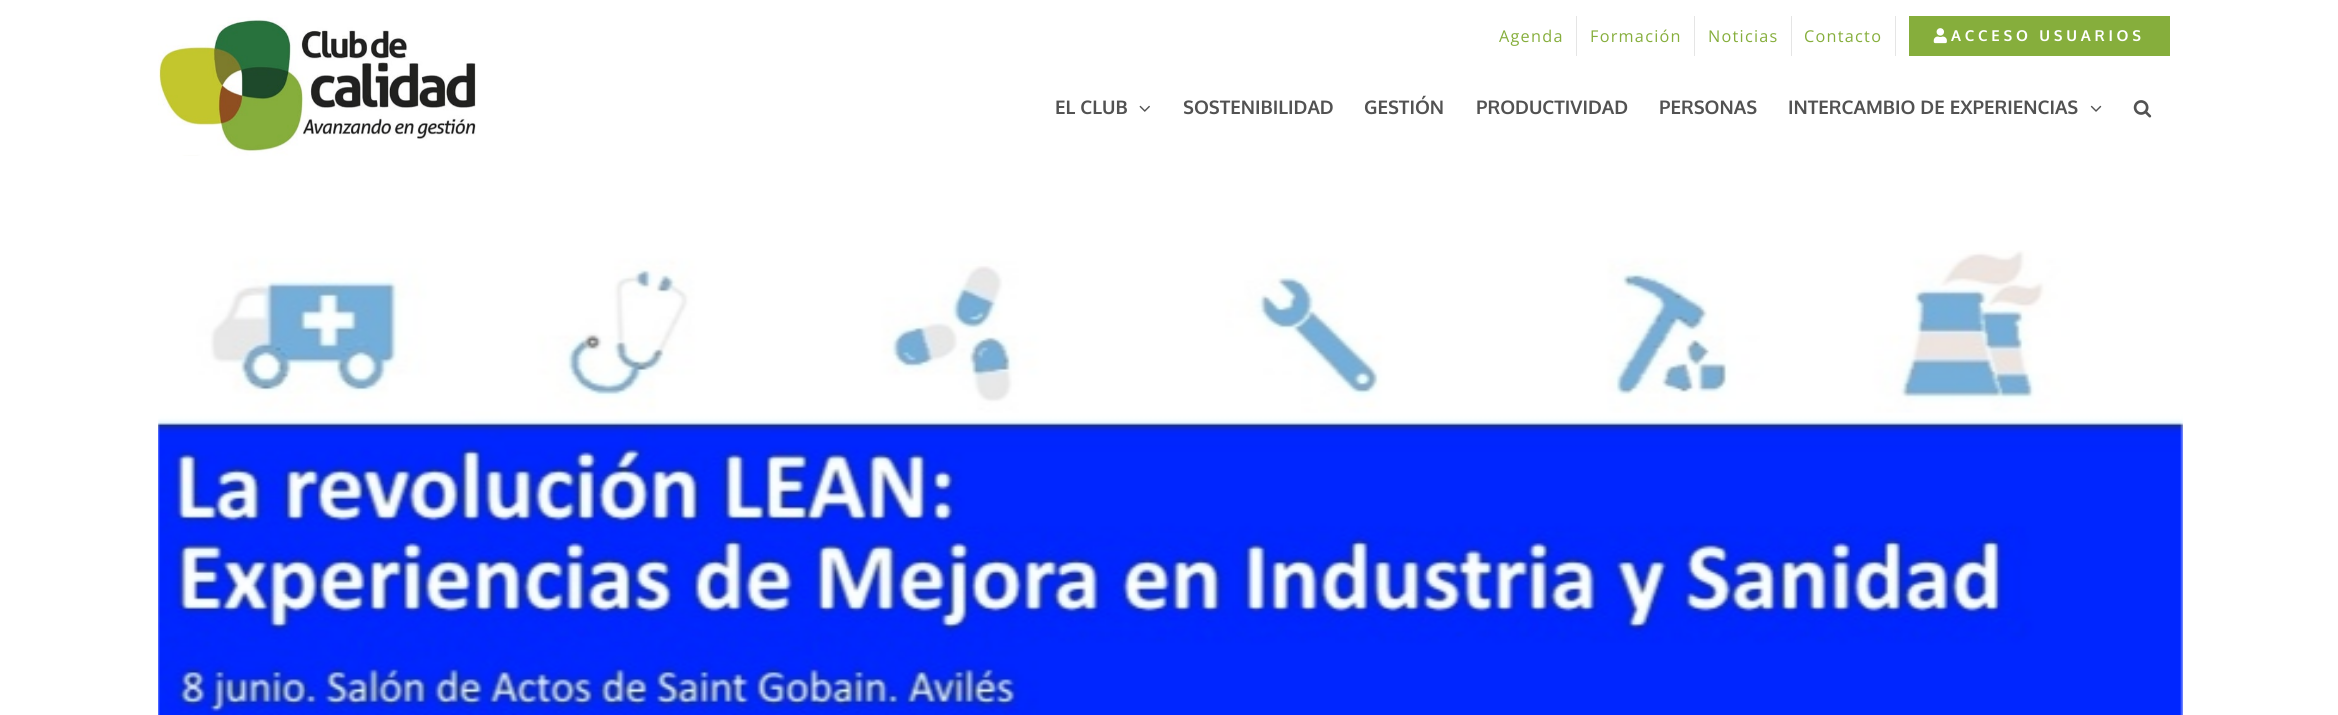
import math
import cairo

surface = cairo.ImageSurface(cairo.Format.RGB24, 2338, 715)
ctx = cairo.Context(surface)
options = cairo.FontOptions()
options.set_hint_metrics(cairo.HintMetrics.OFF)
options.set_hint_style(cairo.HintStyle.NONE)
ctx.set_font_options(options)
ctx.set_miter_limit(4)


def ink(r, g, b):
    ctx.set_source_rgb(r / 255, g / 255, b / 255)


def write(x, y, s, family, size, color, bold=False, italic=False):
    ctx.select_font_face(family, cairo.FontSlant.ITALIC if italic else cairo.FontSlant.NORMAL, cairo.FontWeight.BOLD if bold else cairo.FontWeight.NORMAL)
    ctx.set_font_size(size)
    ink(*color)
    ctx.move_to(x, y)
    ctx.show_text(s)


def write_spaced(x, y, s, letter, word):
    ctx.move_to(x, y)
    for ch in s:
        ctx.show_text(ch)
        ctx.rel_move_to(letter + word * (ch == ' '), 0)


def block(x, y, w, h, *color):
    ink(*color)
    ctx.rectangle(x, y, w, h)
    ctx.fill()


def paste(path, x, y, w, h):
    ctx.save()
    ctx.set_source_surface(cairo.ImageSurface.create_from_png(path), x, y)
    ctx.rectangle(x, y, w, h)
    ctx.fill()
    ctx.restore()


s1 = dict(family="Oxygen", size=18.75, color=(82, 82, 82), bold=True)

ink(255, 255, 255)
ctx.paint()
ctx.select_font_face("Open Sans")
ctx.set_font_size(16.25)
ink(134, 174, 60)
write_spaced(1499, 42, "Agenda", 1.25, 0)
block(1576, 16, 1, 40, 229, 229, 229)
ink(134, 174, 60)
write_spaced(1590, 42, "Formación", 1.25, 0)
block(1694, 16, 1, 40, 229, 229, 229)
ink(134, 174, 60)
write_spaced(1708, 42, "Noticias", 1.25, 0)
block(1791, 16, 1, 40, 229, 229, 229)
ink(134, 174, 60)
write_spaced(1804, 42, "Contacto", 1.25, 0)
block(1895, 16, 1, 40, 229, 229, 229)
block(1909, 16, 261, 40, 134, 174, 60)
paste("pic1.png", 1933, 28, 14, 16)
ctx.select_font_face("Oxygen", cairo.FontSlant.NORMAL, cairo.FontWeight.BOLD)
ctx.set_font_size(15)
ink(255, 255, 255)
write_spaced(1951, 41, "ACCESO USUARIOS", 3.75, 0)
paste("pic2.png", 158, 17, 318, 139)
write(1055, 114, "EL CLUB", **s1)
paste("pic3.png", 1139, 105, 11, 7)
write(1183, 114, "SOSTENIBILIDAD", **s1)
write(1364, 114, "GESTIÓN", **s1)
write(1476, 114, "PRODUCTIVIDAD", **s1)
write(1659, 114, "PERSONAS", **s1)
write(1788, 114, "INTERCAMBIO DE EXPERIENCIAS", **s1)
paste("pic4.png", 2090, 105, 12, 7)
paste("pic5.png", 2133, 100, 19, 18)
paste("pic6.png", 158, 250, 2025, 465)
surface.write_to_png("screenshot.png")
